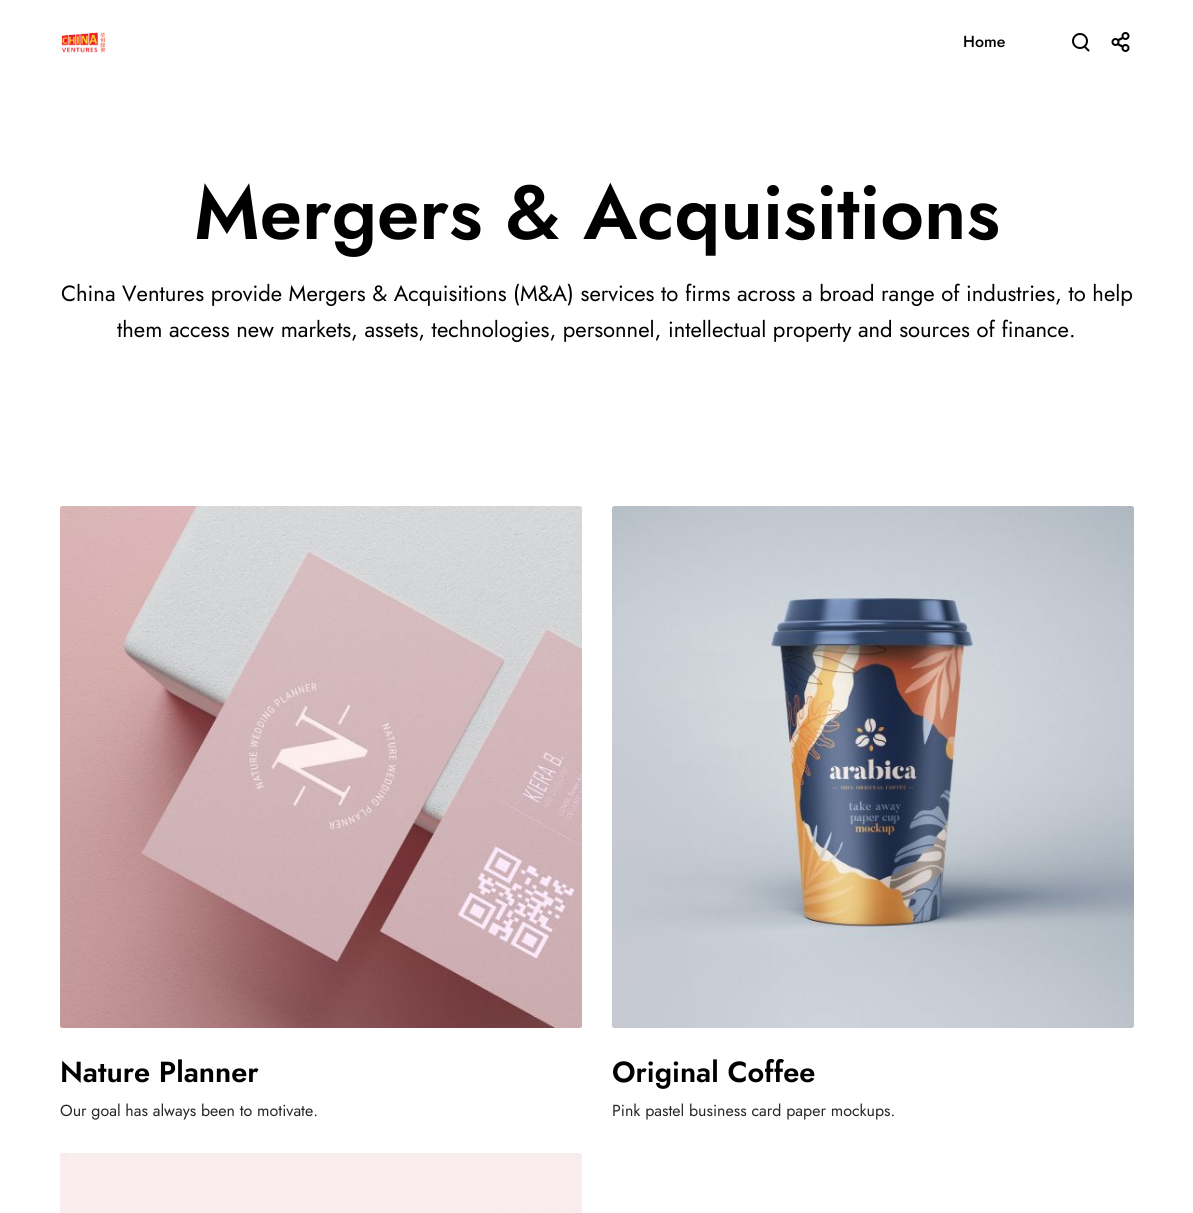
import math
import cairo

surface = cairo.ImageSurface(cairo.Format.RGB24, 1193, 1213)
ctx = cairo.Context(surface)
options = cairo.FontOptions()
options.set_hint_metrics(cairo.HintMetrics.OFF)
options.set_hint_style(cairo.HintStyle.NONE)
ctx.set_font_options(options)
ctx.set_miter_limit(4)


def ink(r, g, b):
    ctx.set_source_rgb(r / 255, g / 255, b / 255)


def write(x, y, s, family, size, color, bold=False, italic=False):
    ctx.select_font_face(family, cairo.FontSlant.ITALIC if italic else cairo.FontSlant.NORMAL, cairo.FontWeight.BOLD if bold else cairo.FontWeight.NORMAL)
    ctx.set_font_size(size)
    ink(*color)
    ctx.move_to(x, y)
    ctx.show_text(s)


def paste(path, x, y, w, h):
    ctx.save()
    ctx.set_source_surface(cairo.ImageSurface.create_from_png(path), x, y)
    ctx.rectangle(x, y, w, h)
    ctx.fill()
    ctx.restore()


s1 = dict(family="Jost Medium", size=16, color=(0, 0, 0))
s2 = dict(family="Jost SemiBold", size=76, color=(0, 0, 0))
s3 = dict(family="Jost", size=22, color=(0, 0, 0))
s4 = dict(family="Jost SemiBold", size=29, color=(0, 0, 0))
s5 = dict(family="Jost", size=16, color=(39, 39, 39))

ink(255, 255, 255)
ctx.paint()
paste("pic1.png", 61, 32, 45, 21)
write(963, 47, "Home", **s1)
paste("pic2.png", 1072, 33, 18, 19)
paste("pic3.png", 1111, 32, 19, 20)
write(194, 239, "Mergers & Acquisitions", **s2)
write(61, 301, "China Ventures provide Mergers & Acquisitions (M&A) services to firms across a broad range of industries, to help", **s3)
write(117, 337, "them access new markets, assets, technologies, personnel, intellectual property and sources of finance.", **s3)
paste("pic4.png", 60, 506, 522, 522)
write(60, 1082, "Nature Planner", **s4)
write(60, 1116, "Our goal has always been to motivate.", **s5)
paste("pic5.png", 612, 506, 522, 522)
write(612, 1082, "Original Coffee", **s4)
write(612, 1116, "Pink pastel business card paper mockups.", **s5)
paste("pic6.png", 60, 1153, 522, 60)
surface.write_to_png("screenshot.png")
